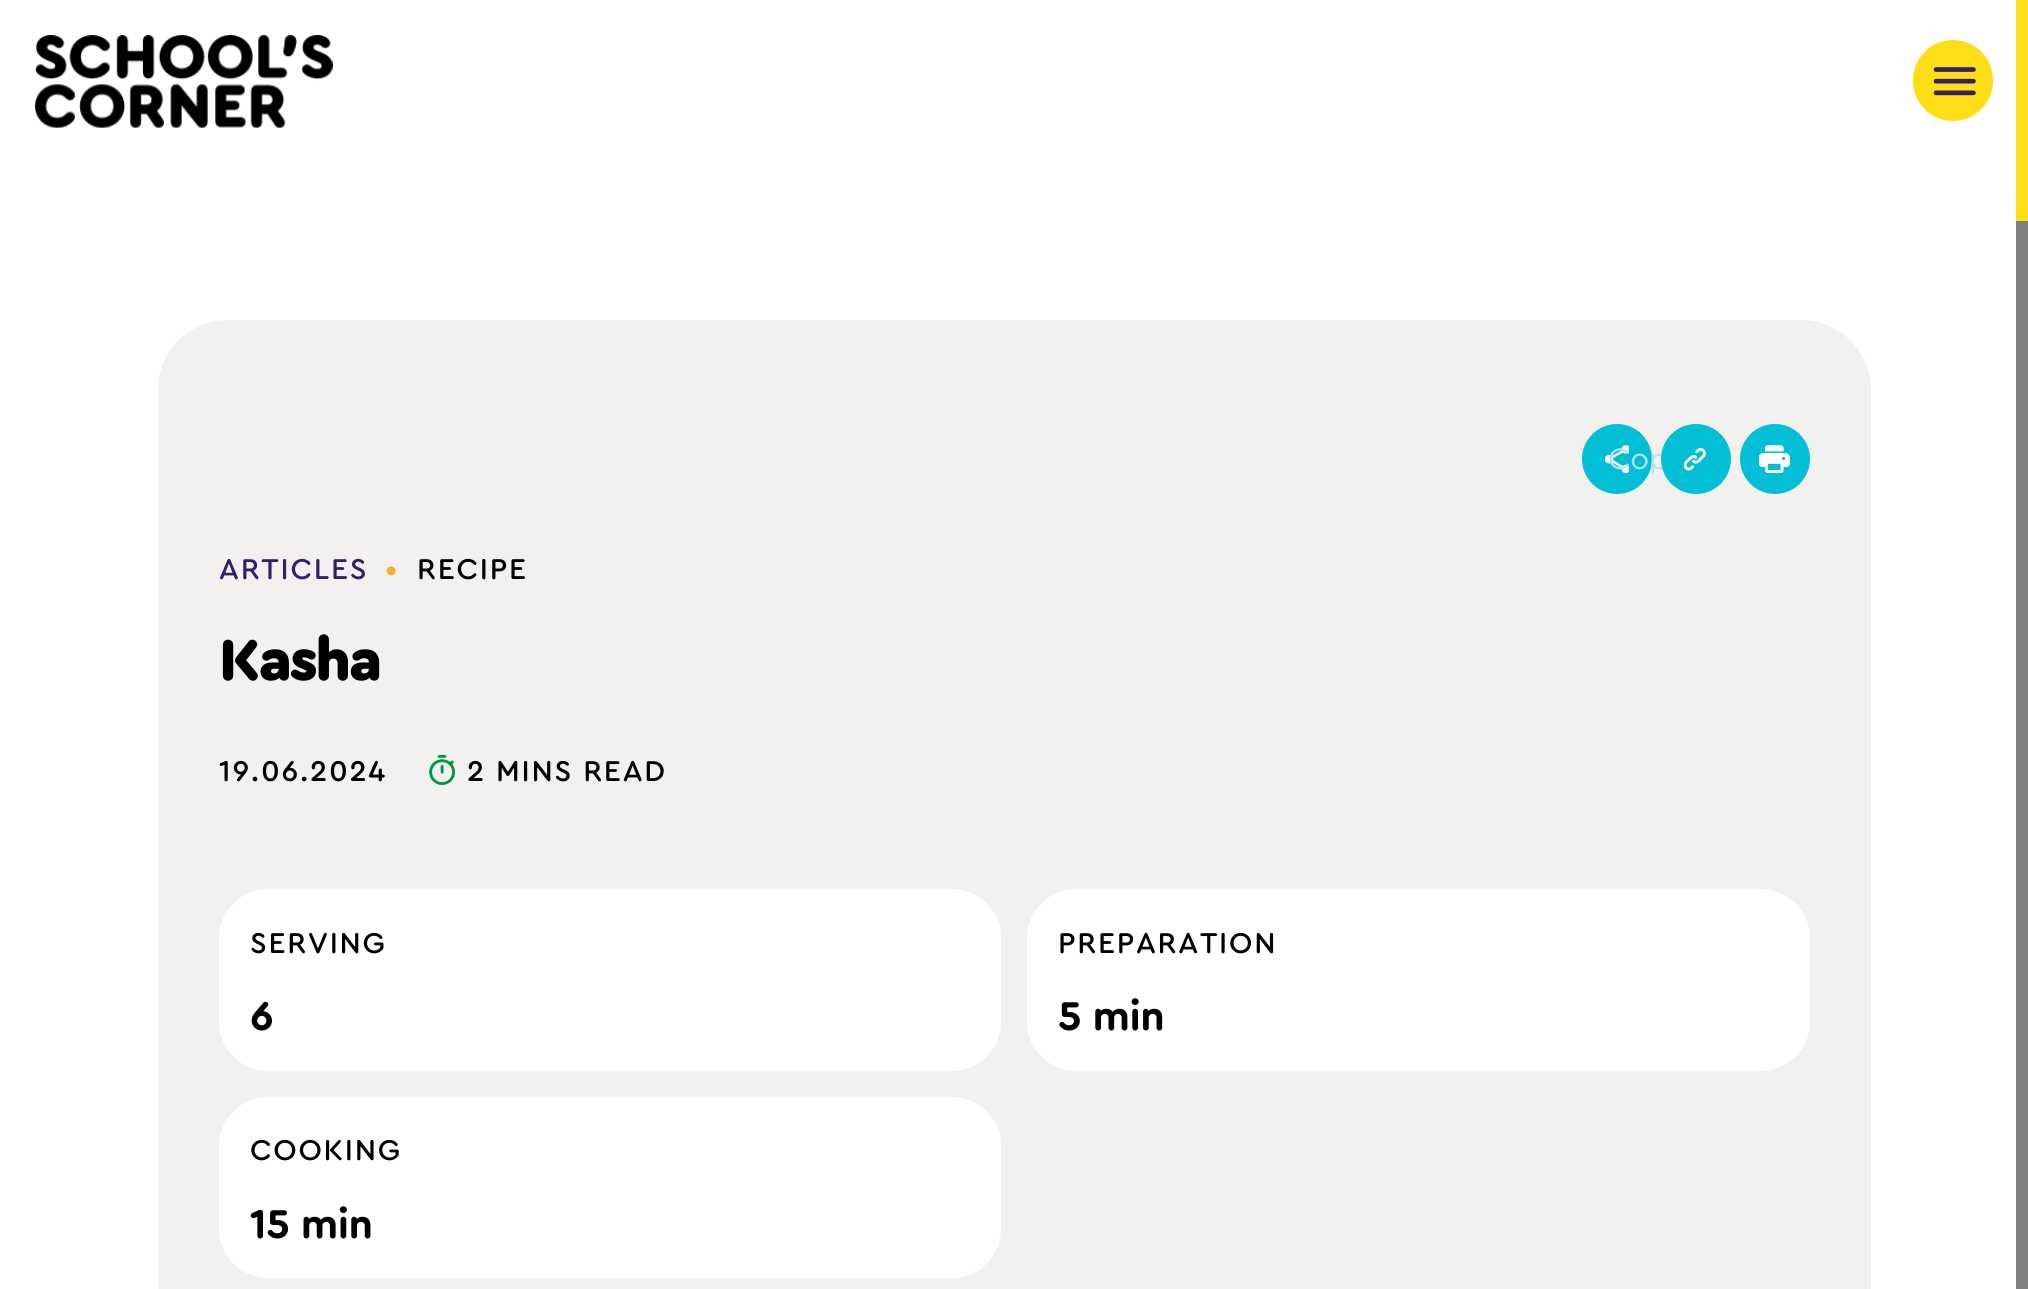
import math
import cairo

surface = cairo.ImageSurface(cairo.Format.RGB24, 2028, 1289)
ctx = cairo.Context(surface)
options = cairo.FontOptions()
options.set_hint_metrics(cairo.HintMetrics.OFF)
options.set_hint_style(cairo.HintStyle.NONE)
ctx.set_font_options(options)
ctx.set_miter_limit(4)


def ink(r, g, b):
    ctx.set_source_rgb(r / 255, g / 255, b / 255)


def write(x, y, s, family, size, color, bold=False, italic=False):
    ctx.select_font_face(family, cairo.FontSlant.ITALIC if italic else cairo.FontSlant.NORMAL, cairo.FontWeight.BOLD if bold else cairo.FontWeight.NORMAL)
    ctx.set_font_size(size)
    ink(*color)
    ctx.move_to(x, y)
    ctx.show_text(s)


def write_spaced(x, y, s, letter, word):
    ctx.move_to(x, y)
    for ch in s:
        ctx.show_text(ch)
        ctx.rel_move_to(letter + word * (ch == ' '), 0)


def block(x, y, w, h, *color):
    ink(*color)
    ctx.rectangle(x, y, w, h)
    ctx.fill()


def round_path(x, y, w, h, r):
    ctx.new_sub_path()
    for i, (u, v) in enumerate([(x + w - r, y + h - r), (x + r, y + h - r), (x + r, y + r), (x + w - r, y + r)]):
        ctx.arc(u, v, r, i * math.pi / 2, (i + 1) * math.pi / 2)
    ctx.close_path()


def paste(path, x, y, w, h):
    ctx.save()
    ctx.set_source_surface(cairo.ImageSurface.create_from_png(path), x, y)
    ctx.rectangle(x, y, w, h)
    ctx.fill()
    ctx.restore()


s1 = dict(family="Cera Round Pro", size=31, color=(181, 229, 234))

ink(255, 255, 255)
ctx.paint()
paste("pic1.png", 35, 35, 298, 93)
ink(255, 222, 23)
round_path(1913, 40, 80, 81, 40)
ctx.fill()
paste("pic2.png", 1933, 67, 43, 29)
block(2016, 221, 12, 1068, 128, 128, 128)
block(2016, 0, 12, 221, 255, 222, 23)
ink(242, 241, 240)
round_path(158, 320, 1713, 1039, 70)
ctx.fill()
ink(3, 191, 214)
ctx.arc(1617, 459, 35, 0, 2 * math.pi)
ctx.fill()
paste("pic3.png", 1605, 445, 24, 28)
ctx.arc(1775, 459, 35, 0, 2 * math.pi)
ctx.fill()
paste("pic4.png", 1759, 445, 31, 28)
write(1608, 469, "Cop", **s1)
ink(3, 191, 214)
ctx.new_path()
ctx.arc(1696, 459, 35, 0, 2 * math.pi)
ctx.fill()
paste("pic5.png", 1684, 448, 22, 23)
ctx.select_font_face("Cera Round Pro Medium")
ctx.set_font_size(30)
ink(53, 31, 101)
write_spaced(219, 579, "ARTICLES", 1.75, 0)
ink(250, 176, 38)
write_spaced(385, 579, "•", 1.75, 0)
ink(0, 0, 0)
write_spaced(417, 579, "RECIPE", 1.75, 0)
ctx.select_font_face("Cera Round Pro Black")
ctx.set_font_size(60)
write_spaced(219, 680, "Kasha", -2, 0)
ctx.select_font_face("Cera Round Pro Medium")
ctx.set_font_size(30)
write_spaced(219, 781, "19.06.2024", 1.75, 0)
paste("pic6.png", 429, 754, 27, 31)
write_spaced(467, 781, "2 MINS READ", 1.75, 0)
ink(255, 255, 255)
round_path(219, 889, 782, 182, 49)
ctx.fill()
ink(0, 0, 0)
write_spaced(250, 953, "SERVING", 1.75, 0)
ctx.select_font_face("Cera Round Pro", cairo.FontSlant.NORMAL, cairo.FontWeight.BOLD)
ctx.set_font_size(42)
write_spaced(250, 1030, "6", -0.5, 0)
ink(255, 255, 255)
round_path(1027, 889, 783, 182, 49)
ctx.fill()
ctx.select_font_face("Cera Round Pro Medium")
ctx.set_font_size(30)
ink(0, 0, 0)
write_spaced(1058, 953, "PREPARATION", 1.75, 0)
ctx.select_font_face("Cera Round Pro", cairo.FontSlant.NORMAL, cairo.FontWeight.BOLD)
ctx.set_font_size(42)
write_spaced(1058, 1030, "5 min", -0.5, 0)
ink(255, 255, 255)
round_path(219, 1097, 782, 181, 49)
ctx.fill()
ctx.select_font_face("Cera Round Pro Medium")
ctx.set_font_size(30)
ink(0, 0, 0)
write_spaced(250, 1160, "COOKING", 1.75, 0)
ctx.select_font_face("Cera Round Pro", cairo.FontSlant.NORMAL, cairo.FontWeight.BOLD)
ctx.set_font_size(42)
write_spaced(250, 1238, "15 min", -0.5, 0)
surface.write_to_png("screenshot.png")
